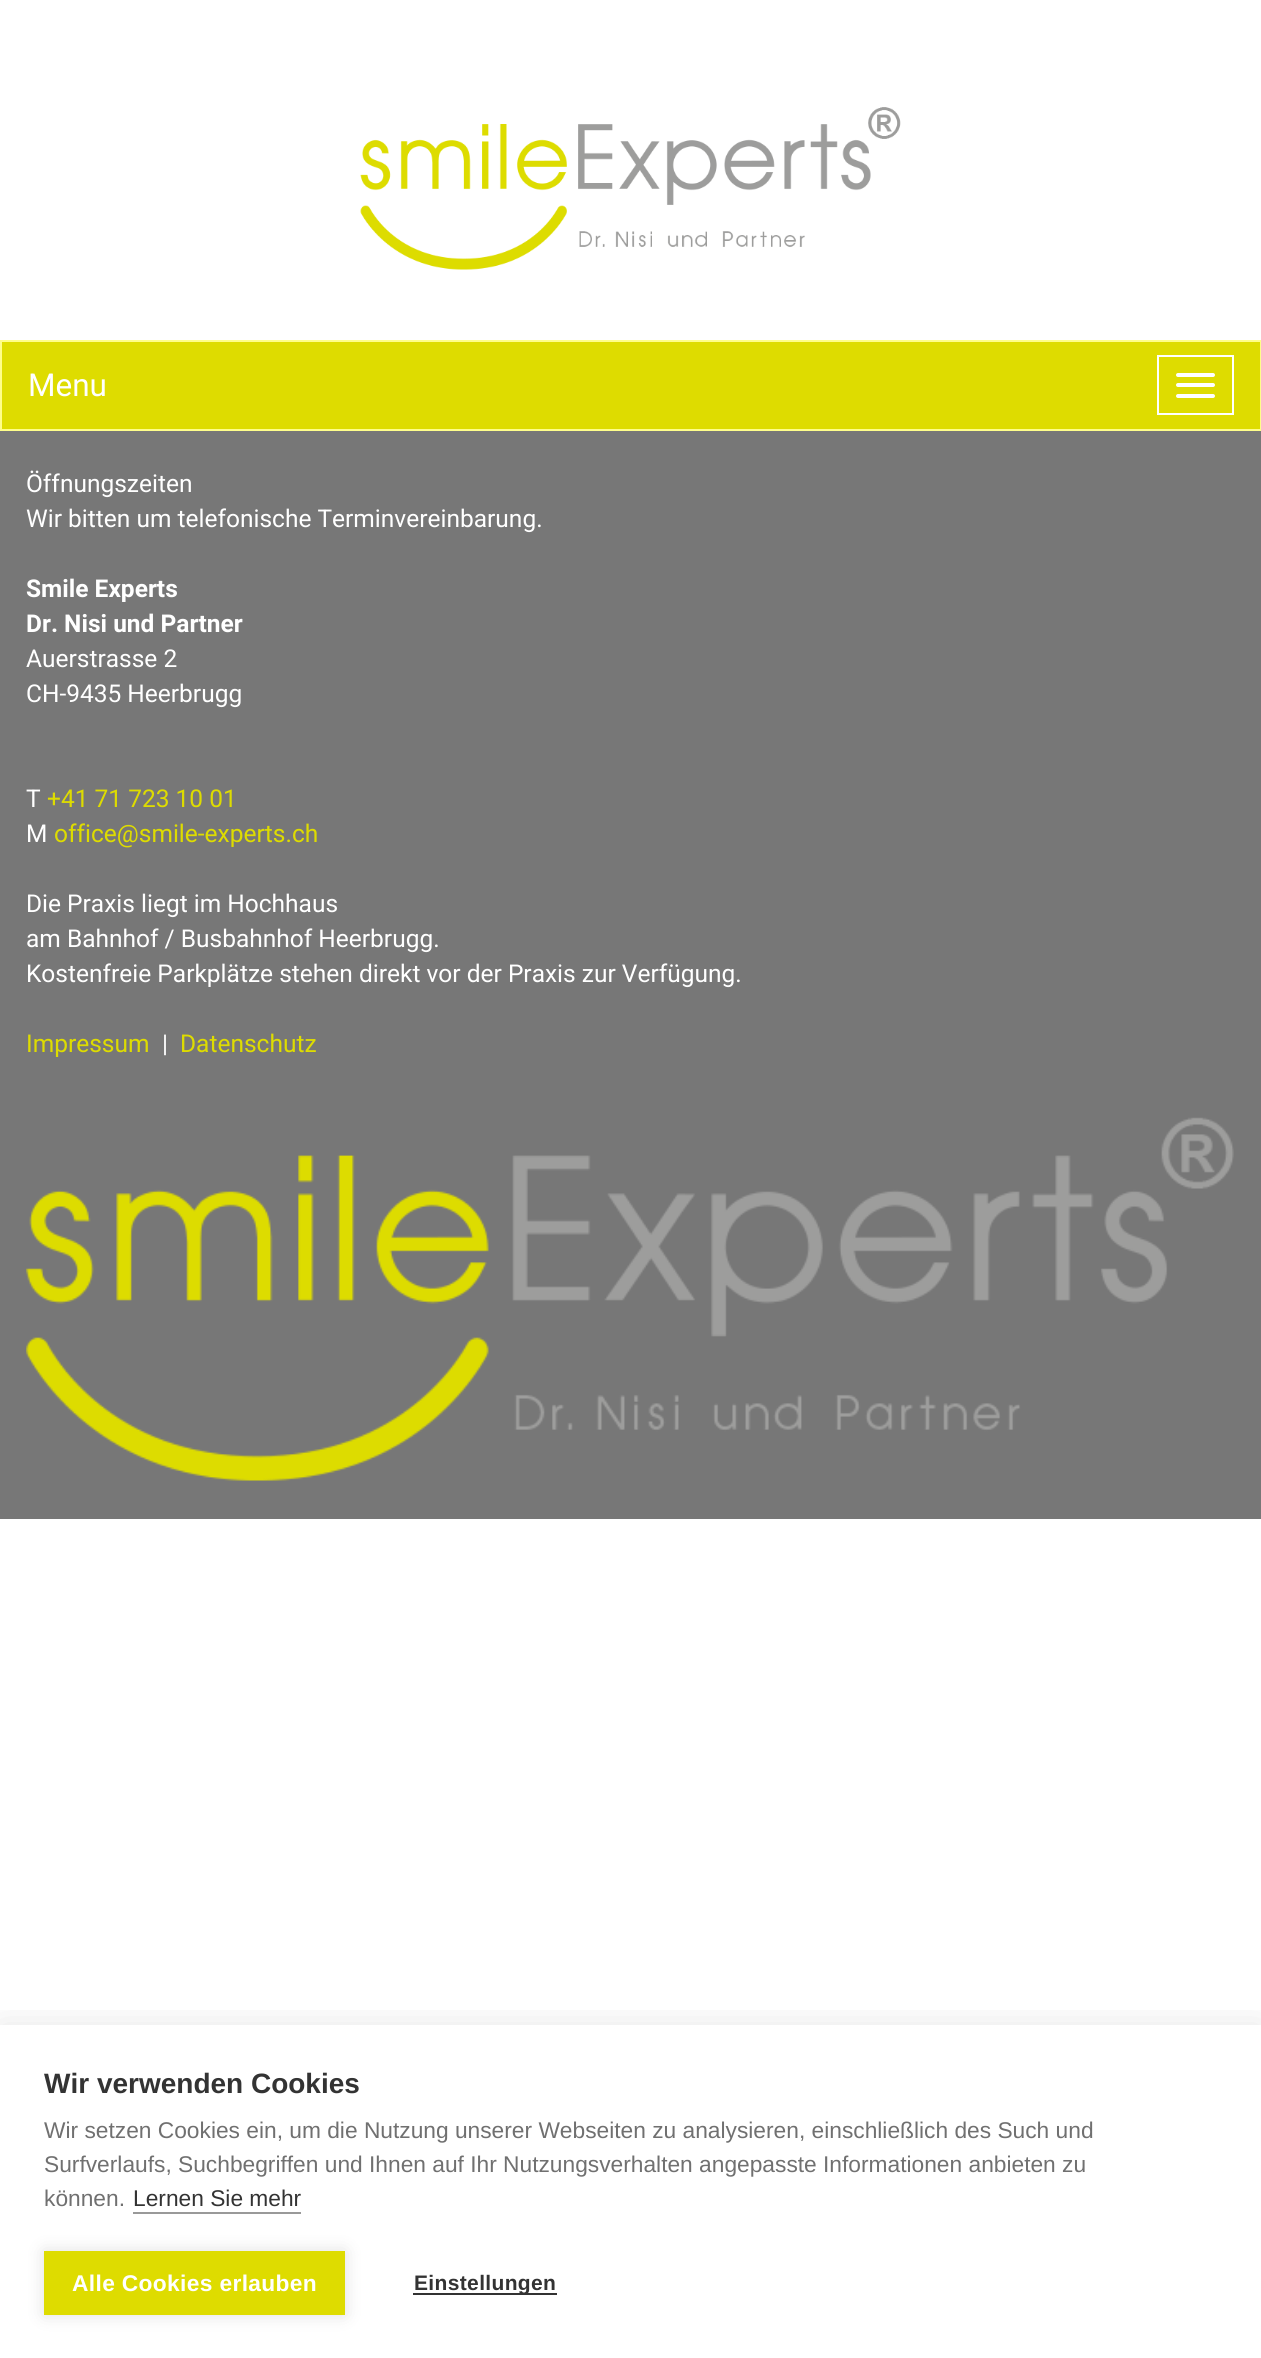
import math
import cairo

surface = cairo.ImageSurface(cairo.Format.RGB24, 1261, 2358)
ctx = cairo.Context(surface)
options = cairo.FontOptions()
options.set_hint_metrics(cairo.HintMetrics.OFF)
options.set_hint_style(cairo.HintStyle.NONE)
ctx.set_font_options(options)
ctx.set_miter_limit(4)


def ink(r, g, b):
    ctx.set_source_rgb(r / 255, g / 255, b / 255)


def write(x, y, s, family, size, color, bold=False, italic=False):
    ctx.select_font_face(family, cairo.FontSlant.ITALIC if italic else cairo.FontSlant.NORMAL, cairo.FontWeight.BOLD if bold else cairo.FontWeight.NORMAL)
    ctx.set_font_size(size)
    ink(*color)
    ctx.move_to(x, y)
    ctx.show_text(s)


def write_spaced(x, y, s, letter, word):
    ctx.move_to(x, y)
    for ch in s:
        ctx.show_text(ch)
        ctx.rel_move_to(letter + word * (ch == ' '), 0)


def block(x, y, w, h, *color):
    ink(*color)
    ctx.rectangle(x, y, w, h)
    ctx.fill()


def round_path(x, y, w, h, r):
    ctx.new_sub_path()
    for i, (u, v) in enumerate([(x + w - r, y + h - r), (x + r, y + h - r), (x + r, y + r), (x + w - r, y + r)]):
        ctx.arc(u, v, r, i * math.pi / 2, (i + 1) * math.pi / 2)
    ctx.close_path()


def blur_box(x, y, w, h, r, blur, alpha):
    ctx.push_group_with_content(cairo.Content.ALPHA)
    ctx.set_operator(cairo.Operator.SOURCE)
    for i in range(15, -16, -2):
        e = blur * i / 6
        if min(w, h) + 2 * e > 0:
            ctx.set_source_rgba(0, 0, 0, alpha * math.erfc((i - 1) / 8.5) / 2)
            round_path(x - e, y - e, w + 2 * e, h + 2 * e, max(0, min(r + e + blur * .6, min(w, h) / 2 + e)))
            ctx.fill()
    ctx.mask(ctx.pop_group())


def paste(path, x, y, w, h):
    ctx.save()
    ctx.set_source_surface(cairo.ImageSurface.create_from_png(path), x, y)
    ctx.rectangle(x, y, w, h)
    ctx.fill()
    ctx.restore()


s1 = dict(family="Roboto", size=31.5, color=(255, 255, 255))
s2 = dict(family="Roboto", size=24.5, color=(255, 255, 255))
s3 = dict(family="Roboto", size=24.5, color=(255, 255, 255), bold=True)
s4 = dict(family="Roboto", size=24.5, color=(222, 220, 0))
s5 = dict(family="Liberation Sans", size=28, color=(51, 51, 51), bold=True)
s6 = dict(family="Liberation Sans", size=22.75, color=(112, 112, 112))
s7 = dict(family="Liberation Sans", size=22.75, color=(51, 51, 51))

ink(255, 255, 255)
ctx.paint()
paste("pic1.png", 360, 107, 541, 163)
ink(222, 220, 0)
ctx.rectangle(1, 341, 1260, 89)
ctx.fill_preserve()
ink(255, 254, 138)
ctx.stroke()
write(28, 396, "Menu", **s1)
ctx.rectangle(1158, 356, 75, 58)
ctx.stroke()
round_path(1176, 373, 39, 4, 2)
ctx.fill()
round_path(1176, 383, 39, 4, 2)
ctx.fill()
round_path(1176, 394, 39, 4, 2)
ctx.fill()
block(0, 431, 1261, 1088, 119, 119, 119)
write(26, 492, "Öffnungszeiten", **s2)
write(26, 527, "Wir bitten um telefonische Terminvereinbarung.", **s2)
write(26, 597, "Smile Experts", **s3)
write(26, 632, "Dr. Nisi und Partner", **s3)
write(26, 667, "Auerstrasse 2", **s2)
write(26, 702, "CH-9435 Heerbrugg", **s2)
write(26, 807, "T", **s2)
write(47, 807, "+41 71 723 10 01", **s4)
write(26, 842, "M", **s2)
write(54, 842, "office@smile-experts.ch", **s4)
write(26, 912, "Die Praxis liegt im Hochhaus", **s2)
write(26, 947, "am Bahnhof / Busbahnhof Heerbrugg.", **s2)
write(26, 982, "Kostenfreie Parkplätze stehen direkt vor der Praxis zur Verfügung.", **s2)
write(26, 1052, "Impressum", **s4)
write(162, 1052, "|", **s2)
write(180, 1052, "Datenschutz", **s4)
paste("pic2.png", 26, 1117, 1208, 364)
ctx.save()
ctx.rectangle(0, 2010, 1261, 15)
ctx.clip()
ink(0, 0, 0)
blur_box(0, 2025, 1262, 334, 0, 17.5, 0.1)
ctx.restore()
write(44, 2093, "Wir verwenden Cookies", **s5)
write(44, 2138, "Wir setzen Cookies ein, um die Nutzung unserer Webseiten zu analysieren, einschließlich des Such und", **s6)
write(44, 2172, "Surfverlaufs, Suchbegriffen und Ihnen auf Ihr Nutzungsverhalten angepasste Informationen anbieten zu", **s6)
write(44, 2206, "können.", **s6)
write(133, 2206, "Lernen Sie mehr", **s7)
block(133, 2212, 168, 2, 153, 153, 153)
ink(0, 0, 0)
blur_box(44, 2251, 301, 64, 0, 9, 0.12)
block(44, 2251, 301, 64, 222, 220, 0)
ctx.select_font_face("Liberation Sans", cairo.FontSlant.NORMAL, cairo.FontWeight.BOLD)
ink(255, 255, 255)
write_spaced(72, 2291, "Alle Cookies erlauben", 0.35, 0)
block(413, 2293, 144, 2, 51, 51, 51)
ctx.set_font_size(21)
write_spaced(414, 2290, "Einstellungen", 0.35, 0)
surface.write_to_png("screenshot.png")
